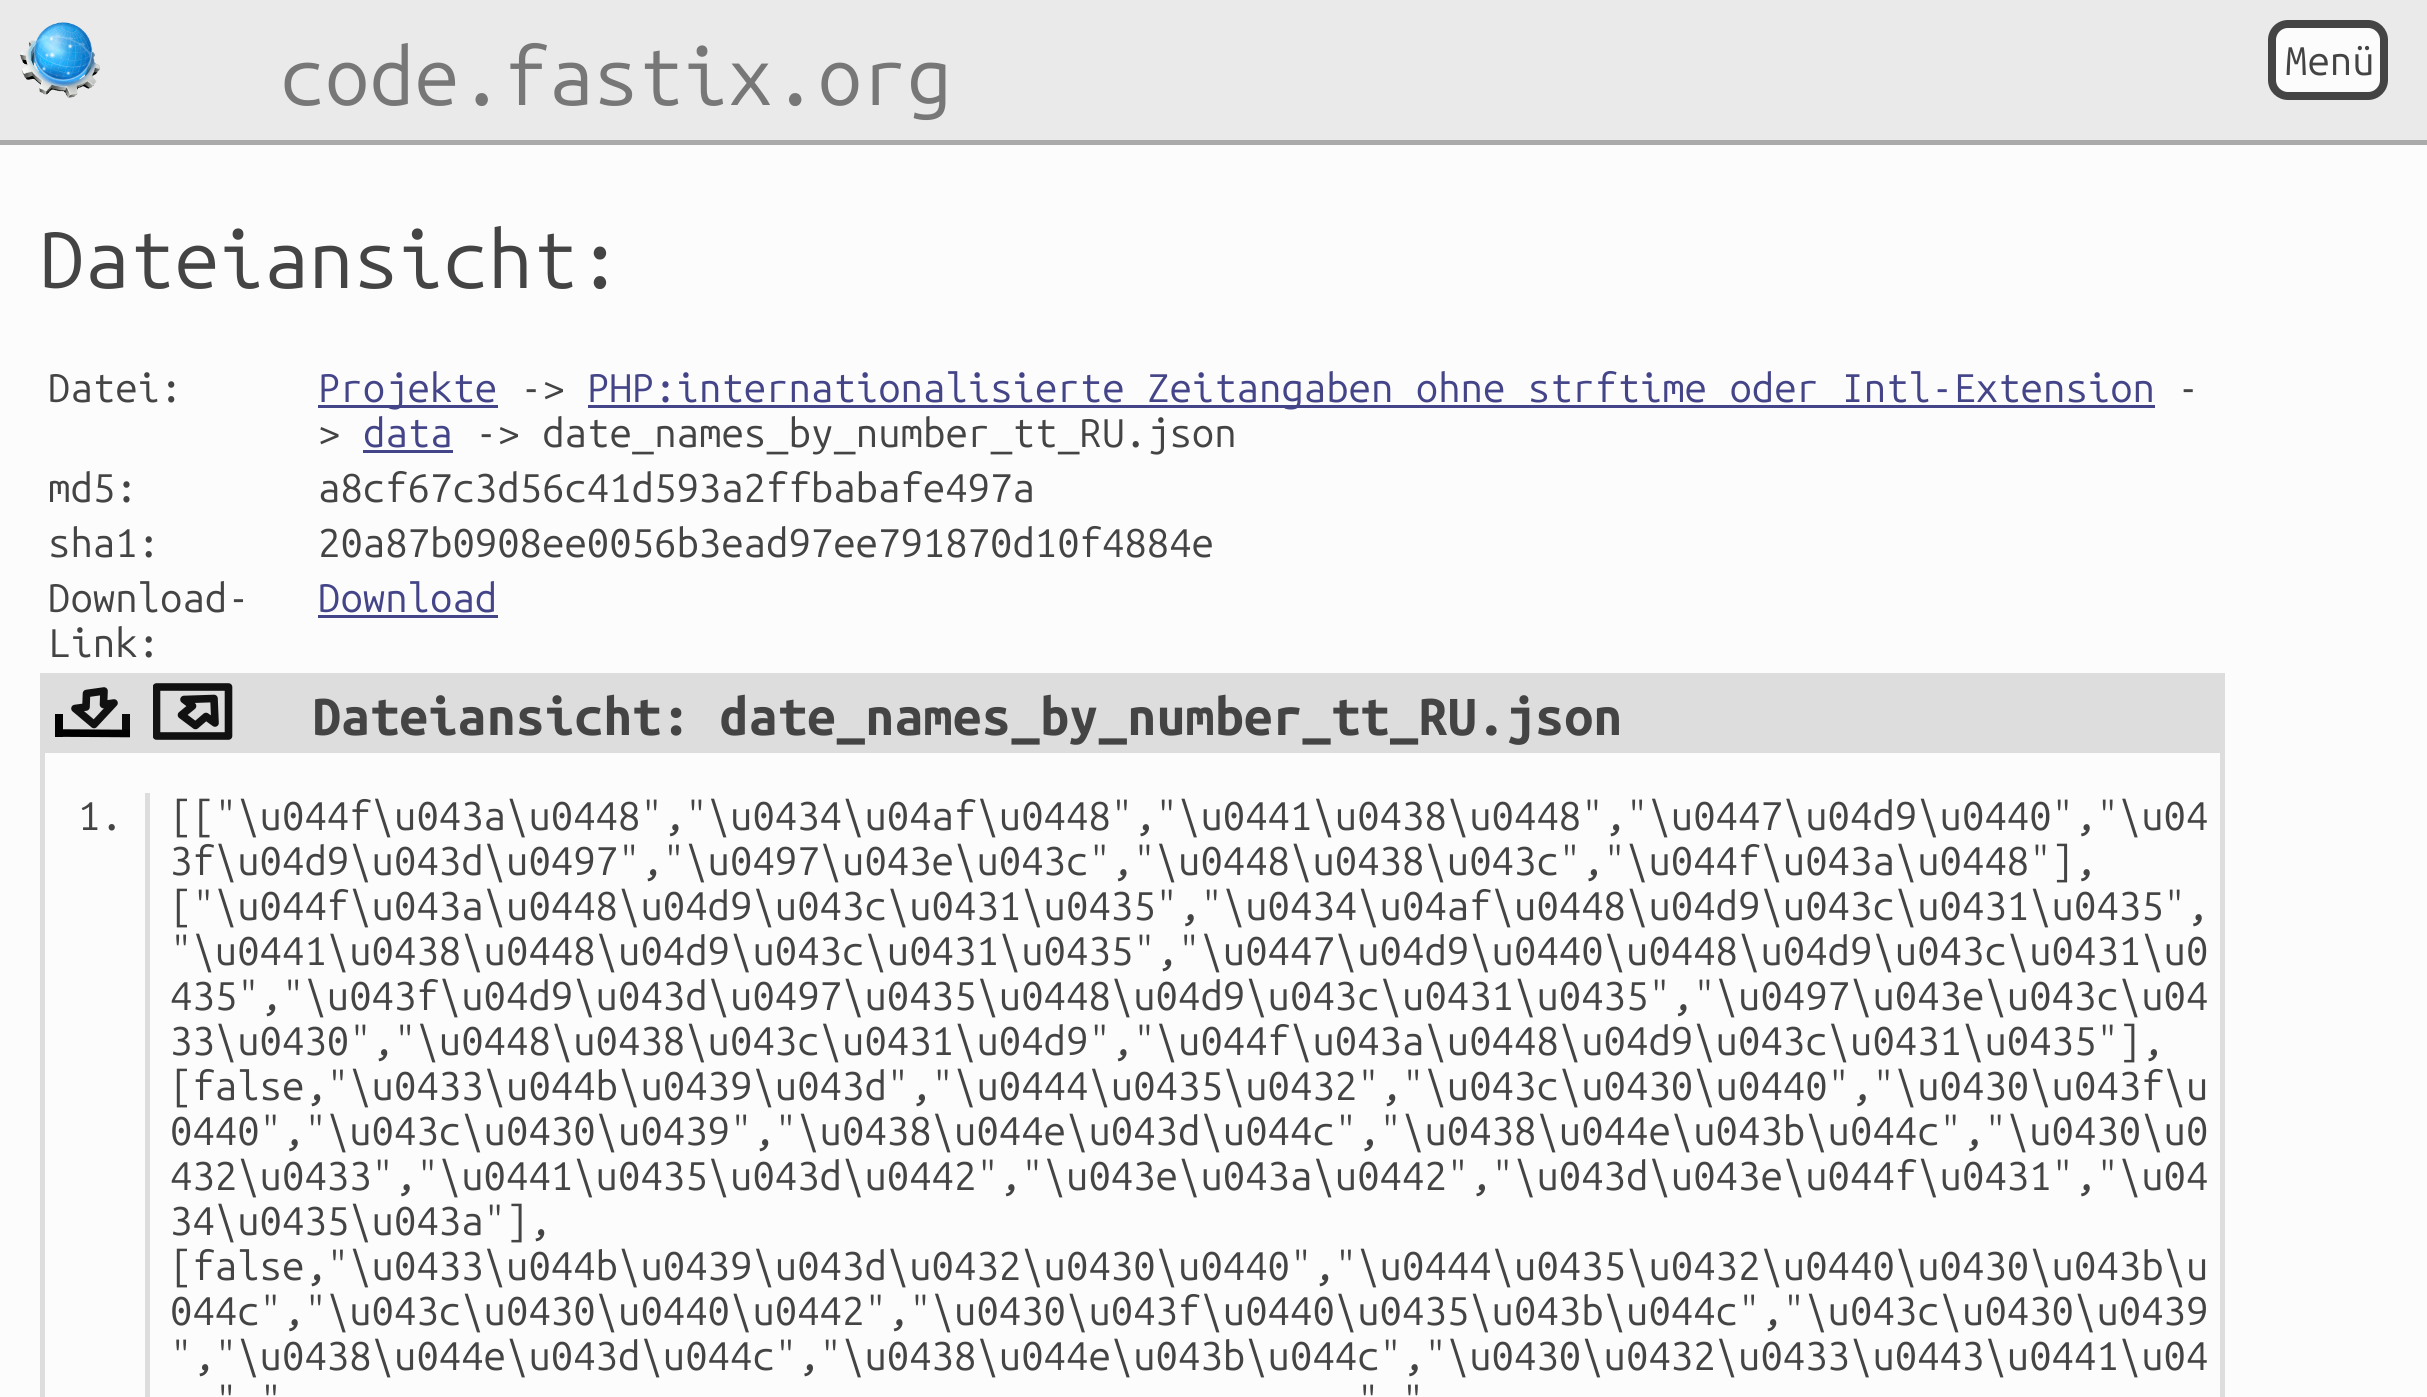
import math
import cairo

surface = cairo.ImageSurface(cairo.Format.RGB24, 2427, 1397)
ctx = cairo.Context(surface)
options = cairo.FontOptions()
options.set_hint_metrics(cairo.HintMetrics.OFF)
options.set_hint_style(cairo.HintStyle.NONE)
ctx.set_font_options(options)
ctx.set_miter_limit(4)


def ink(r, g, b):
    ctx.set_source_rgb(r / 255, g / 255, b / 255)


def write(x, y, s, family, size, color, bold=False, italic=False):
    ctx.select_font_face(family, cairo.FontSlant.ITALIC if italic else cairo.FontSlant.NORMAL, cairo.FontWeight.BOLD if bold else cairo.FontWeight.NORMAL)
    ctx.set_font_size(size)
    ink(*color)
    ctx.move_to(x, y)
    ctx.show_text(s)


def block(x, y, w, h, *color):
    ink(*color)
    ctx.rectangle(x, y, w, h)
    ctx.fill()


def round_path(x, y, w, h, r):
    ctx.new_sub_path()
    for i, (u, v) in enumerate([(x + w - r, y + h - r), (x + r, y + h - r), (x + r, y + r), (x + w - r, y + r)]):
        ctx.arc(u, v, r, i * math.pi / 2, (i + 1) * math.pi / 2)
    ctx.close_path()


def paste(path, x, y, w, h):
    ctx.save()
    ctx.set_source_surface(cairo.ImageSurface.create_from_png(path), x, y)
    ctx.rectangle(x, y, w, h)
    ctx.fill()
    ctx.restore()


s1 = dict(family="Ubuntu Mono", size=80, color=(119, 119, 119))
s2 = dict(family="Ubuntu Mono", size=40, color=(68, 68, 68))
s3 = dict(family="Ubuntu Mono", size=80, color=(68, 68, 68))
s4 = dict(family="Ubuntu Mono", size=40, color=(68, 68, 136))
s5 = dict(family="Ubuntu Mono", size=52, color=(68, 68, 68), bold=True)

ink(252, 252, 252)
ctx.paint()
block(0, 0, 2427, 140, 234, 234, 234)
paste("pic1.png", 20, 22, 80, 76)
block(0, 140, 2427, 5, 170, 170, 170)
write(280, 105, "code.fastix.org", **s1)
ink(252, 252, 252)
round_path(2272, 24, 112, 72, 16)
ctx.fill_preserve()
ink(68, 68, 68)
ctx.set_line_width(8)
ctx.stroke()
write(2285, 75, "Menü", **s2)
write(40, 288, "Dateiansicht:", **s3)
write(48, 402, "Datei:", **s2)
block(318, 405, 180, 3, 68, 68, 136)
write(318, 402, "Projekte", **s4)
write(520, 402, "->", **s2)
block(588, 405, 1567, 3, 68, 68, 136)
write(587, 402, "PHP:internationalisierte Zeitangaben ohne strftime oder Intl-Extension", **s4)
write(2177, 402, "-", **s2)
write(318, 447, ">", **s2)
write(363, 447, "data", **s4)
block(363, 450, 90, 3, 68, 68, 136)
write(475, 447, "-> date_names_by_number_tt_RU.json", **s2)
write(48, 502, "md5:", **s2)
write(318, 502, "a8cf67c3d56c41d593a2ffbabafe497a", **s2)
write(48, 557, "sha1:", **s2)
write(318, 557, "20a87b0908ee0056b3ead97ee791870d10f4884e", **s2)
write(48, 612, "Download-", **s2)
write(48, 657, "Link:", **s2)
write(318, 612, "Download", **s4)
block(318, 615, 180, 3, 68, 68, 136)
block(40, 673, 2185, 75, 221, 221, 221)
ctx.new_path()
ctx.move_to(104, 691)
ctx.line_to(103.5, 704.5)
ctx.line_to(114, 703)
ctx.line_to(94, 724.5)
ctx.line_to(75, 708.5)
ctx.line_to(86, 707)
ctx.line_to(86.5, 693.5)
ctx.close_path()
ink(17, 17, 17)
ctx.set_line_width(7.6)
ctx.set_line_join(cairo.LineJoin.ROUND)
ctx.stroke()
block(122, 714, 8, 23, 11, 11, 11)
block(55, 714, 8, 23, 1, 1, 1)
ctx.new_path()
ctx.move_to(130, 733.5)
ctx.line_to(55, 733)
ink(0, 0, 0)
ctx.stroke()
ctx.save()
ctx.rectangle(153, 683, 80, 57)
ctx.clip()
ctx.new_path()
ctx.move_to(192.5, 736)
ctx.line_to(156.5, 736)
ctx.line_to(156.5, 687)
ctx.line_to(228.5, 687)
ctx.line_to(228.5, 736)
ctx.close_path()
ink(17, 17, 17)
ctx.stroke()
ctx.restore()
ctx.new_path()
ctx.move_to(181.5, 715)
ctx.line_to(192.5, 706)
ctx.line_to(184, 699.5)
ctx.line_to(214, 698.5)
ctx.line_to(215, 723)
ctx.line_to(206, 716.5)
ctx.line_to(195.5, 725.5)
ctx.close_path()
ink(17, 17, 17)
ctx.stroke()
write(312, 735, "Dateiansicht: date_names_by_number_tt_RU.json", **s5)
ctx.rectangle(42.5, 750.5, 2180, 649)
ink(221, 221, 221)
ctx.set_line_width(5)
ctx.set_line_join(cairo.LineJoin.MITER)
ctx.stroke()
block(145, 793, 5, 604, 221, 221, 221)
write(78, 830, "1.", **s2)
write(170, 830, "[[\"\\u044f\\u043a\\u0448\",\"\\u0434\\u04af\\u0448\",\"\\u0441\\u0438\\u0448\",\"\\u0447\\u04d9\\u0440\",\"\\u04", **s2)
write(170, 875, "3f\\u04d9\\u043d\\u0497\",\"\\u0497\\u043e\\u043c\",\"\\u0448\\u0438\\u043c\",\"\\u044f\\u043a\\u0448\"],", **s2)
write(170, 920, "[\"\\u044f\\u043a\\u0448\\u04d9\\u043c\\u0431\\u0435\",\"\\u0434\\u04af\\u0448\\u04d9\\u043c\\u0431\\u0435\",", **s2)
write(170, 965, "\"\\u0441\\u0438\\u0448\\u04d9\\u043c\\u0431\\u0435\",\"\\u0447\\u04d9\\u0440\\u0448\\u04d9\\u043c\\u0431\\u0", **s2)
write(170, 1010, "435\",\"\\u043f\\u04d9\\u043d\\u0497\\u0435\\u0448\\u04d9\\u043c\\u0431\\u0435\",\"\\u0497\\u043e\\u043c\\u04", **s2)
write(170, 1055, "33\\u0430\",\"\\u0448\\u0438\\u043c\\u0431\\u04d9\",\"\\u044f\\u043a\\u0448\\u04d9\\u043c\\u0431\\u0435\"],", **s2)
write(170, 1100, "[false,\"\\u0433\\u044b\\u0439\\u043d\",\"\\u0444\\u0435\\u0432\",\"\\u043c\\u0430\\u0440\",\"\\u0430\\u043f\\u", **s2)
write(170, 1145, "0440\",\"\\u043c\\u0430\\u0439\",\"\\u0438\\u044e\\u043d\\u044c\",\"\\u0438\\u044e\\u043b\\u044c\",\"\\u0430\\u0", **s2)
write(170, 1190, "432\\u0433\",\"\\u0441\\u0435\\u043d\\u0442\",\"\\u043e\\u043a\\u0442\",\"\\u043d\\u043e\\u044f\\u0431\",\"\\u04", **s2)
write(170, 1235, "34\\u0435\\u043a\"],", **s2)
write(170, 1280, "[false,\"\\u0433\\u044b\\u0439\\u043d\\u0432\\u0430\\u0440\",\"\\u0444\\u0435\\u0432\\u0440\\u0430\\u043b\\u", **s2)
write(170, 1325, "044c\",\"\\u043c\\u0430\\u0440\\u0442\",\"\\u0430\\u043f\\u0440\\u0435\\u043b\\u044c\",\"\\u043c\\u0430\\u0439", **s2)
write(170, 1370, "\",\"\\u0438\\u044e\\u043d\\u044c\",\"\\u0438\\u044e\\u043b\\u044c\",\"\\u0430\\u0432\\u0433\\u0443\\u0441\\u04", **s2)
write(215, 1415, "\",\"", **s2)
write(1357, 1415, "\",\"", **s2)
surface.write_to_png("screenshot.png")
